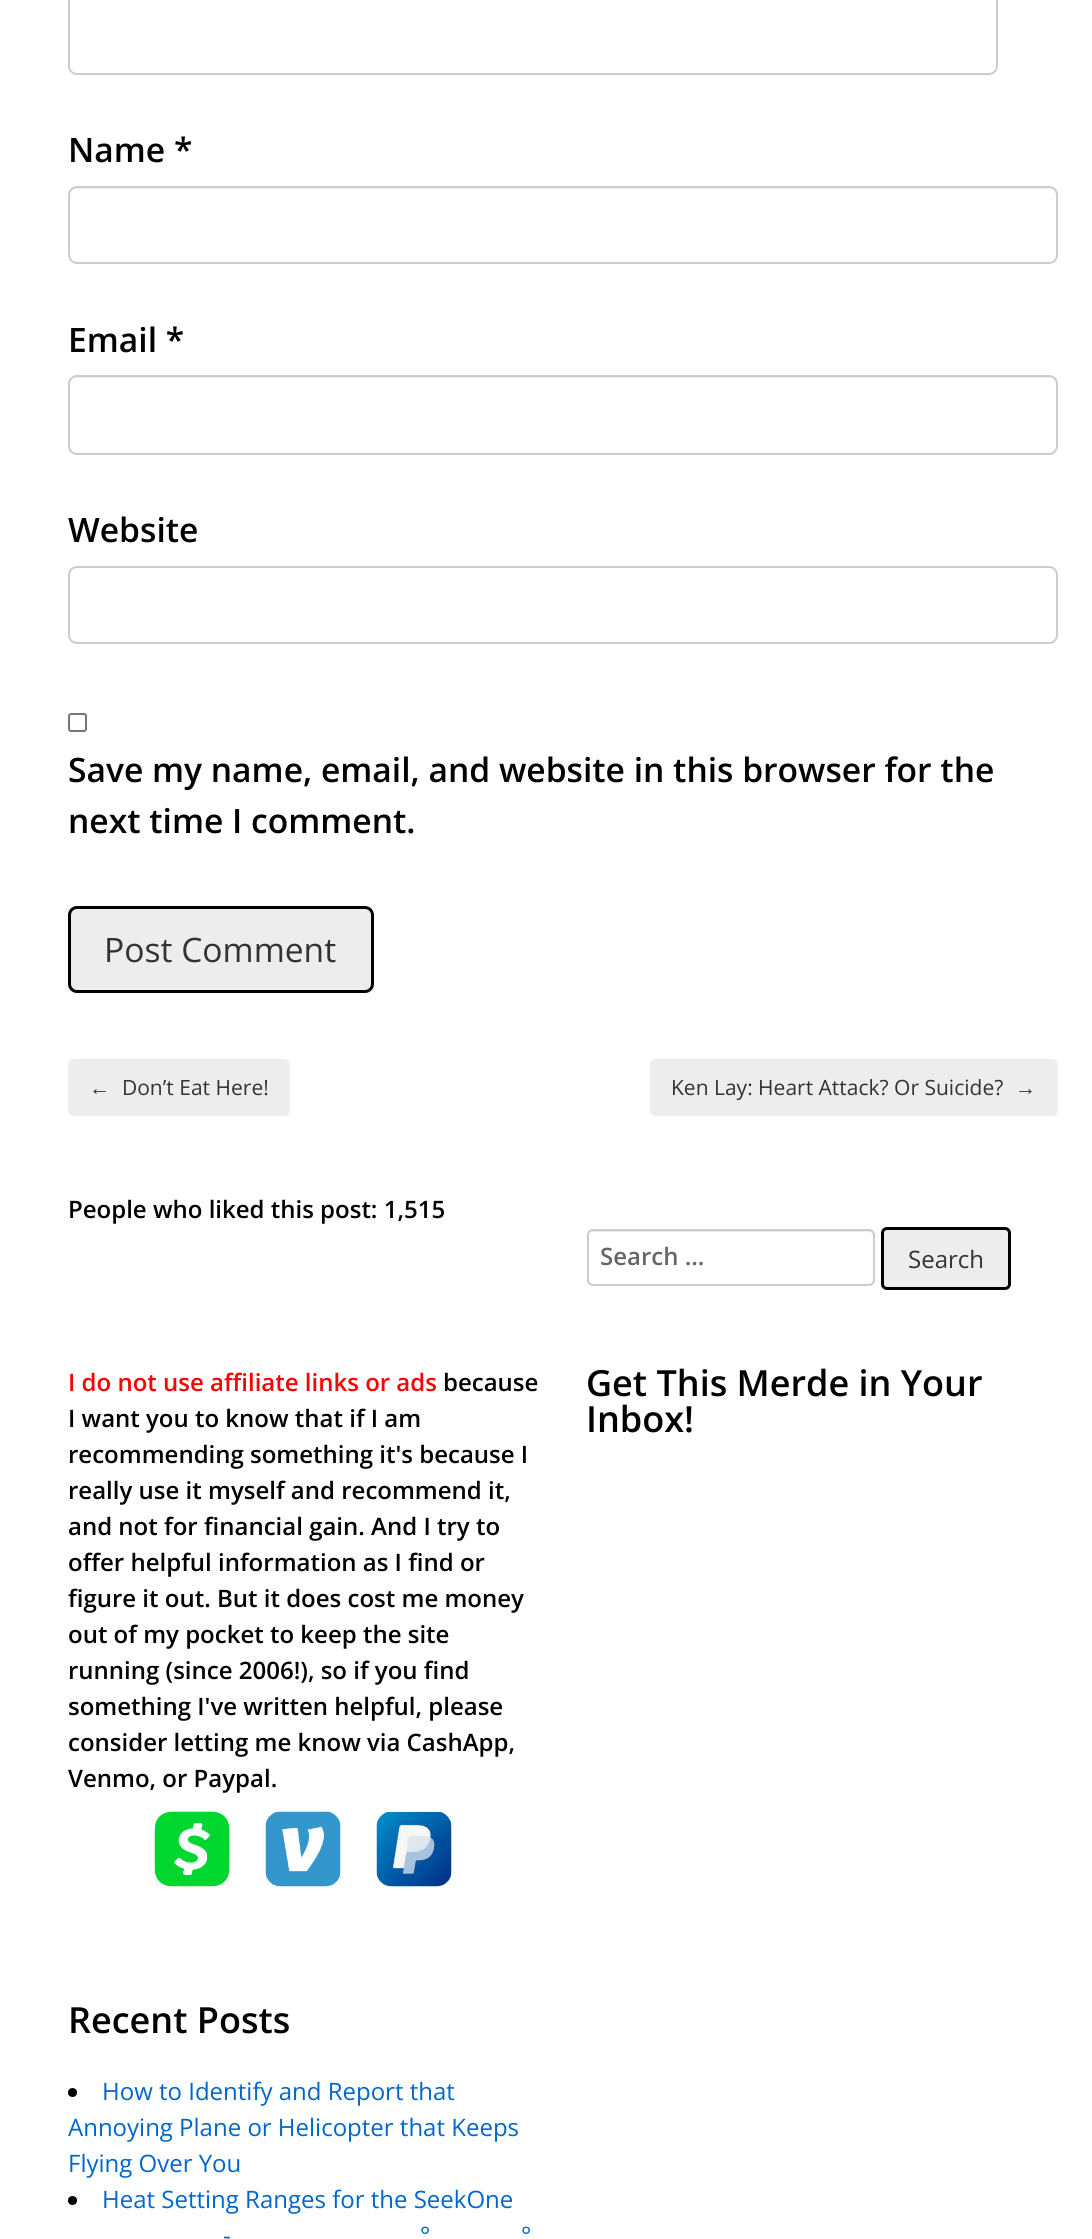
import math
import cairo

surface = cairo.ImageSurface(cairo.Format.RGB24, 1092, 2239)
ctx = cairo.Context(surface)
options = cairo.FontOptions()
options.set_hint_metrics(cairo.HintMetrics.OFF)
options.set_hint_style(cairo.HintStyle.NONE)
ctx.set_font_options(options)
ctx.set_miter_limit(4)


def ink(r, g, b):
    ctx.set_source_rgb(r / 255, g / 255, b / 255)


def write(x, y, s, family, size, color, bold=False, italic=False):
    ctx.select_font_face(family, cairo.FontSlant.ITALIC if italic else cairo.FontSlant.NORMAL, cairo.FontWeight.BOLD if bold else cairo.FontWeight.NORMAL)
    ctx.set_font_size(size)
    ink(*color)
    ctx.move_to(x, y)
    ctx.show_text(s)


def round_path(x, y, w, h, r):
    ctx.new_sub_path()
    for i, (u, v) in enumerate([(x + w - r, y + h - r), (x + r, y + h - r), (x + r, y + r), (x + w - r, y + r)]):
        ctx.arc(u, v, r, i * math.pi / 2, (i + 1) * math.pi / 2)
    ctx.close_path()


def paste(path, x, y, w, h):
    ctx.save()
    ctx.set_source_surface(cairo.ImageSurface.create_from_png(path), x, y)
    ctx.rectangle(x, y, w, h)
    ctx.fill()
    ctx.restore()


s1 = dict(family="Open Sans SemiBold", size=33.6, color=(0, 0, 0))
s2 = dict(family="Open Sans", size=33.6, color=(51, 51, 51))
s3 = dict(family="Liberation Sans", size=21, color=(51, 51, 51))
s4 = dict(family="Open Sans", size=21, color=(51, 51, 51))
s5 = dict(family="Open Sans SemiBold", size=24, color=(0, 0, 0))
s6 = dict(family="Open Sans SemiBold", size=24, color=(102, 102, 102))
s7 = dict(family="Open Sans", size=24, color=(51, 51, 51))
s8 = dict(family="Open Sans SemiBold", size=24, color=(255, 0, 0))
s9 = dict(family="Open Sans SemiBold", size=36, color=(0, 0, 0))
s10 = dict(family="Open Sans", size=24, color=(0, 102, 204))

ink(255, 255, 255)
ctx.paint()
round_path(69, -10, 928, 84, 8)
ink(204, 204, 204)
ctx.stroke()
write(68, 162, "Name *", **s1)
ink(236, 236, 236)
ctx.new_path()
ctx.move_to(76, 189)
ctx.line_to(1049, 189)
ctx.curve_to(1053, 189, 1056, 192, 1056, 196)
ctx.curve_to(1056, 192, 1052, 188, 1048, 188)
ctx.line_to(77, 188)
ctx.curve_to(73, 188, 69, 192, 69, 196)
ctx.curve_to(69, 192, 72, 189, 76, 189)
ctx.close_path()
ctx.fill()
round_path(69, 187, 988, 76, 8)
ink(204, 204, 204)
ctx.stroke()
write(68, 352, "Email *", **s1)
ink(236, 236, 236)
ctx.new_path()
ctx.move_to(76, 378)
ctx.line_to(1049, 378)
ctx.curve_to(1053, 378, 1056, 381, 1056, 385)
ctx.curve_to(1056, 381, 1052, 377, 1048, 377)
ctx.line_to(77, 377)
ctx.curve_to(73, 377, 69, 381, 69, 385)
ctx.curve_to(69, 381, 72, 378, 76, 378)
ctx.close_path()
ctx.fill()
round_path(69, 376, 988, 78, 8)
ink(204, 204, 204)
ctx.stroke()
write(68, 542, "Website", **s1)
round_path(69, 567, 988, 76, 8)
ink(204, 204, 204)
ctx.stroke()
round_path(69, 714, 17, 17, 2)
ink(118, 118, 118)
ctx.stroke()
write(68, 782, "Save my name, email, and website in this browser for the", **s1)
write(68, 833, "next time I comment.", **s1)
ink(237, 237, 237)
round_path(69.5, 907.5, 303, 84, 7.5)
ctx.fill_preserve()
ink(0, 0, 0)
ctx.set_line_width(3)
ctx.stroke()
write(104, 962, "Post Comment", **s2)
ink(237, 237, 237)
round_path(68, 1059, 222, 57, 6)
ctx.fill()
write(89, 1095, "←", **s3)
write(122, 1095, "Don’t Eat Here!", **s4)
ink(237, 237, 237)
round_path(650, 1059, 408, 57, 6)
ctx.fill()
write(671, 1095, "Ken Lay: Heart Attack? Or Suicide?", **s4)
write(1015, 1095, "→", **s3)
write(68, 1218, "People who liked this post: 1,515", **s5)
ink(236, 236, 236)
ctx.new_path()
ctx.move_to(592, 1232)
ctx.line_to(868, 1232)
ctx.curve_to(871, 1232, 873, 1234, 873, 1236)
ctx.line_to(873, 1235)
ctx.curve_to(873, 1232, 871, 1230, 868, 1230)
ctx.line_to(593, 1230)
ctx.curve_to(590, 1230, 588, 1232, 588, 1235)
ctx.line_to(588, 1236)
ctx.curve_to(588, 1234, 590, 1232, 592, 1232)
ctx.close_path()
ctx.fill()
round_path(588, 1230, 286, 55, 5)
ink(204, 204, 204)
ctx.set_line_width(2)
ctx.stroke()
write(600, 1265, "Search …", **s6)
ink(237, 237, 237)
round_path(882.5, 1228.5, 127, 60, 4.5)
ctx.fill_preserve()
ink(0, 0, 0)
ctx.set_line_width(3)
ctx.stroke()
write(908, 1268, "Search", **s7)
write(68, 1391, "I do not use affiliate links or ads", **s8)
write(443, 1391, "because", **s5)
write(68, 1427, "I want you to know that if I am", **s5)
write(68, 1463, "recommending something it's because I", **s5)
write(68, 1499, "really use it myself and recommend it,", **s5)
write(68, 1535, "and not for financial gain. And I try to", **s5)
write(68, 1571, "offer helpful information as I find or", **s5)
write(68, 1607, "figure it out. But it does cost me money", **s5)
write(68, 1643, "out of my pocket to keep the site", **s5)
write(68, 1679, "running (since 2006!), so if you find", **s5)
write(68, 1715, "something I've written helpful, please", **s5)
write(68, 1751, "consider letting me know via CashApp,", **s5)
write(68, 1787, "Venmo, or Paypal.", **s5)
paste("pic1.png", 154, 1811, 76, 76)
paste("pic2.png", 265, 1811, 76, 76)
paste("pic3.png", 376, 1811, 76, 76)
write(586, 1396, "Get This Merde in Your", **s9)
write(586, 1432, "Inbox!", **s9)
write(68, 2033, "Recent Posts", **s9)
ctx.new_path()
ctx.arc(72.5, 2092.5, 4.5, 0, 2 * math.pi)
ctx.fill()
write(102, 2100, "How to Identify and Report that", **s10)
write(68, 2136, "Annoying Plane or Helicopter that Keeps", **s10)
write(68, 2172, "Flying Over You", **s10)
ink(0, 0, 0)
ctx.new_path()
ctx.arc(72.5, 2200.5, 4.5, 0, 2 * math.pi)
ctx.fill()
write(102, 2208, "Heat Setting Ranges for the SeekOne", **s10)
write(420, 2244, "°", **s10)
write(521, 2244, "°", **s10)
write(223, 2244, "-", **s10)
surface.write_to_png("screenshot.png")
